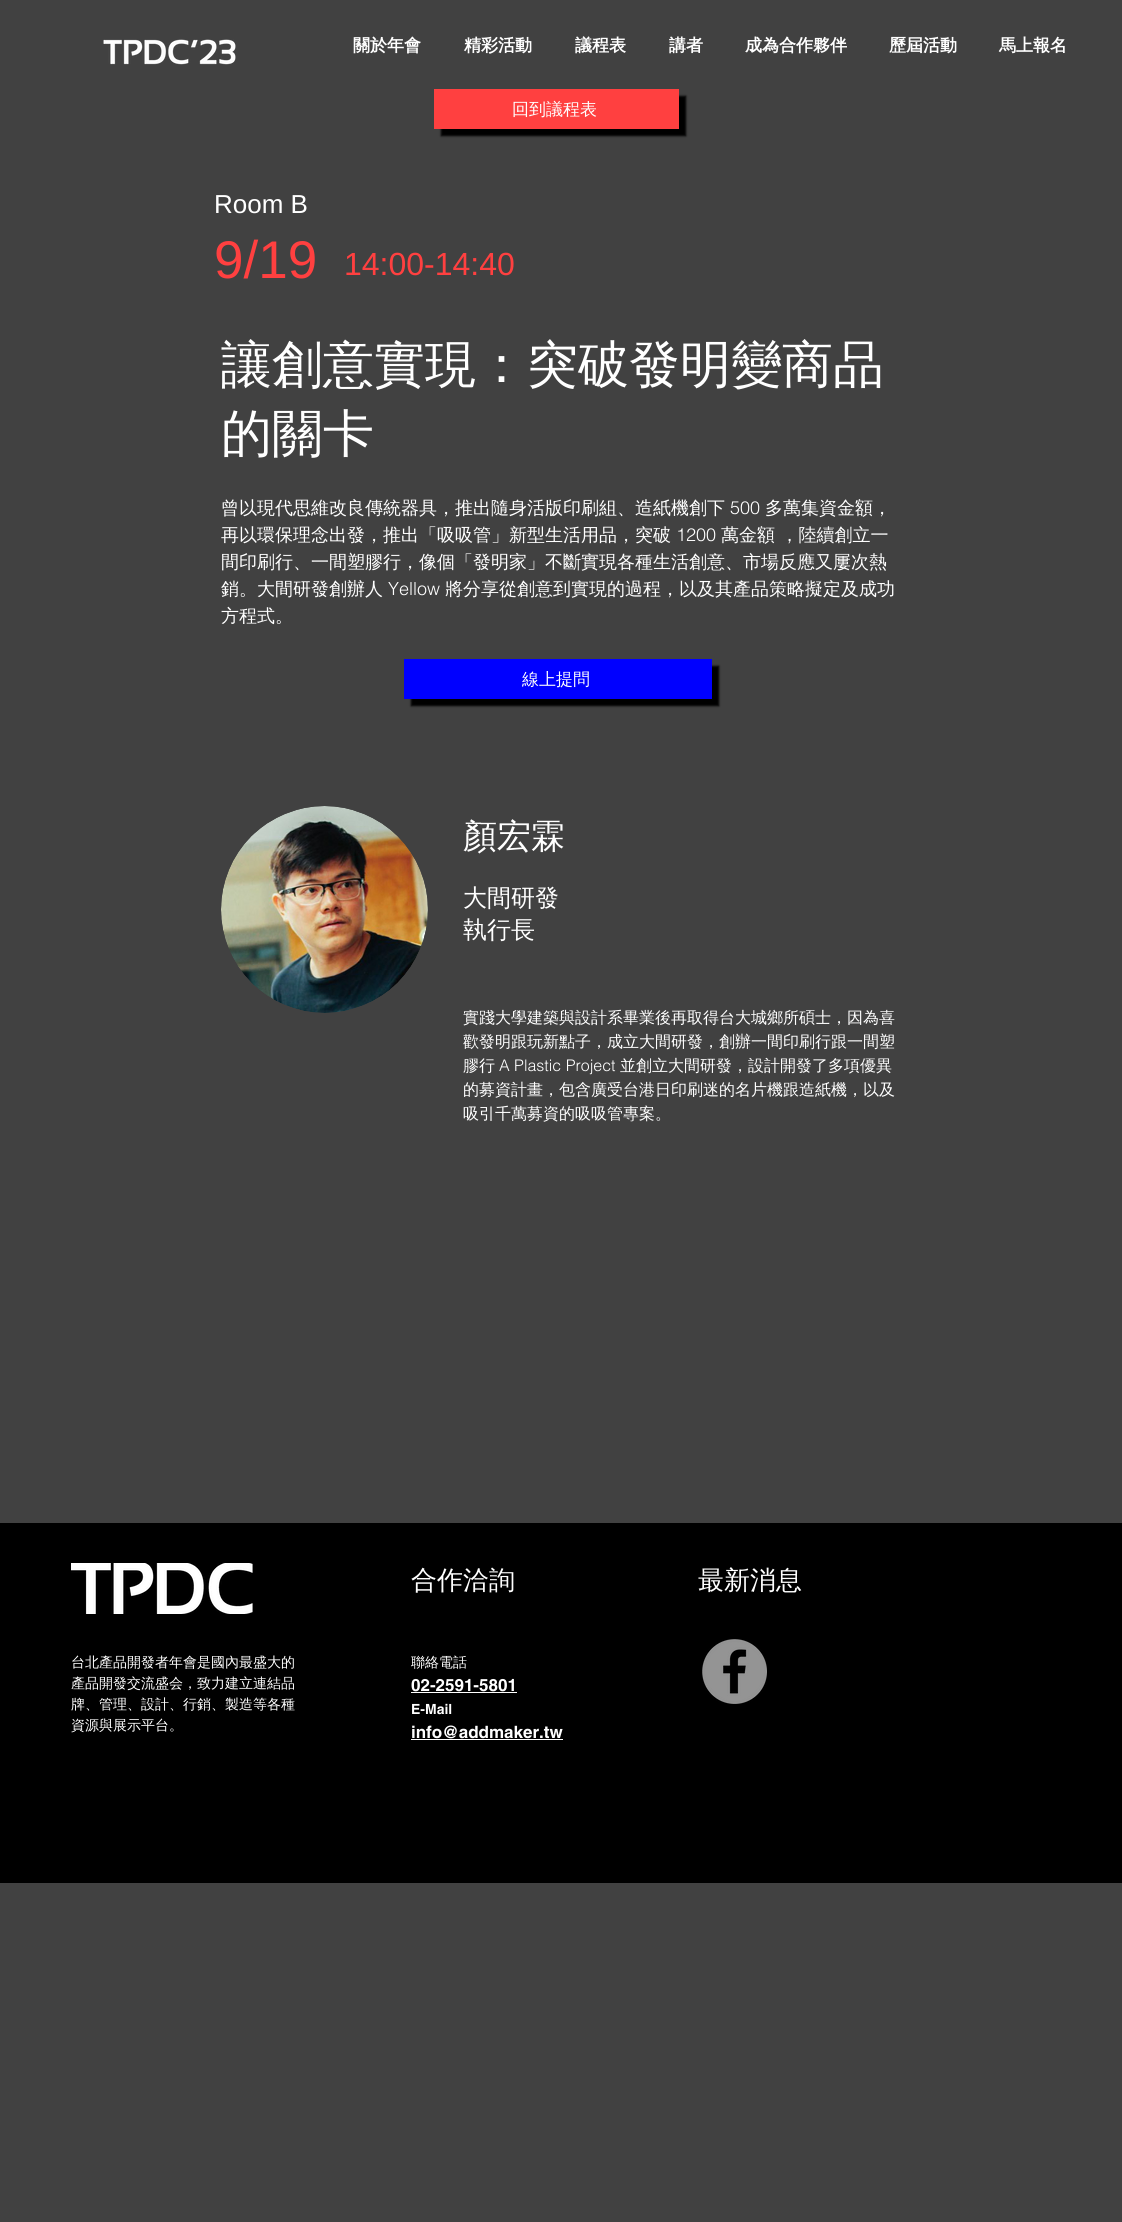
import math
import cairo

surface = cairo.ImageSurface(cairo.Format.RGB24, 1122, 2222)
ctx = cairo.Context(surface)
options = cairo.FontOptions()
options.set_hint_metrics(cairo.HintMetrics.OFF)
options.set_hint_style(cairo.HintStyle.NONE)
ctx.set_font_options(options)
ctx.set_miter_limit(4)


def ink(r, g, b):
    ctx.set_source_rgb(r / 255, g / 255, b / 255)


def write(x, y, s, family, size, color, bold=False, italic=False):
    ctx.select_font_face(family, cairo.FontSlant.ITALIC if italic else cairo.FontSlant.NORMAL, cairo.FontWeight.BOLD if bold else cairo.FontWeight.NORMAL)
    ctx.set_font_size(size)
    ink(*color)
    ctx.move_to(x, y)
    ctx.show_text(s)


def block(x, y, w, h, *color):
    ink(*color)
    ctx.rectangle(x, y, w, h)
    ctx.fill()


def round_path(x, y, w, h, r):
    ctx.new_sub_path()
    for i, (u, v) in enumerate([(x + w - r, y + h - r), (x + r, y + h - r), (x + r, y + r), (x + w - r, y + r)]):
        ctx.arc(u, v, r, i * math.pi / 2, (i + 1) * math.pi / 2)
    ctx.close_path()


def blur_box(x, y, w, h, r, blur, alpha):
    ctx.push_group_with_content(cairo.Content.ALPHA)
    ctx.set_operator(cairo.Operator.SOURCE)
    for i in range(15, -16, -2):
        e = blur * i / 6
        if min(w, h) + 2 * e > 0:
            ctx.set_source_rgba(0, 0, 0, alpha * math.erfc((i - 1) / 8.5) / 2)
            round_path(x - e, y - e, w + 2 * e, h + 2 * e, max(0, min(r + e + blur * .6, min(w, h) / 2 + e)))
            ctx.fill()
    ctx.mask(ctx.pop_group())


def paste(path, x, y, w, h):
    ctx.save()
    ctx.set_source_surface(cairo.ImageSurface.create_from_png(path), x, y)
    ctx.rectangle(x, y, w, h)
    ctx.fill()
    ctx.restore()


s1 = dict(family="WenQuanYi Zen Hei", size=17, color=(255, 255, 255), bold=True)
s2 = dict(family="WenQuanYi Zen Hei Medium", size=17, color=(255, 255, 255))
s3 = dict(family="Liberation Sans", size=26, color=(255, 255, 255))
s4 = dict(family="Liberation Sans", size=53, color=(255, 64, 64))
s5 = dict(family="Liberation Sans", size=32, color=(255, 64, 64))
s6 = dict(family="WenQuanYi Zen Hei Medium", size=51, color=(255, 255, 255))
s7 = dict(family="WenQuanYi Zen Hei Medium", size=18, color=(255, 255, 255))
s8 = dict(family="helvetica Light", size=18, color=(255, 255, 255))
s9 = dict(family="WenQuanYi Zen Hei Medium", size=34, color=(255, 255, 255))
s10 = dict(family="WenQuanYi Zen Hei Medium", size=24, color=(255, 255, 255))
s11 = dict(family="WenQuanYi Zen Hei Medium", size=16, color=(255, 255, 255))
s12 = dict(family="helvetica Light", size=16, color=(255, 255, 255))
s13 = dict(family="WenQuanYi Zen Hei Medium", size=26, color=(255, 255, 255))
s14 = dict(family="WenQuanYi Zen Hei Medium", size=14, color=(255, 255, 255))
s15 = dict(family="helvetica", size=17, color=(255, 255, 255), bold=True)
s16 = dict(family="helvetica", size=14, color=(255, 255, 255), bold=True)

ink(65, 65, 65)
ctx.paint()
paste("pic1.png", 103, 39, 133, 26)
write(353, 51, "關於年會", **s1)
write(464, 51, "精彩活動", **s1)
write(575, 51, "議程表", **s1)
write(669, 51, "講者", **s1)
write(745, 51, "成為合作夥伴", **s1)
write(889, 51, "歷屆活動", **s1)
write(999, 51, "馬上報名", **s1)
ink(0, 0, 0)
blur_box(441, 96, 245, 40, 0, 1, 1)
block(434, 89, 245, 40, 255, 64, 64)
write(512, 115, "回到議程表", **s2)
write(214, 213, "Room B", **s3)
write(214, 278, "9/19", **s4)
write(344, 275, "14:00-14:40", **s5)
write(221, 382, "讓創意實現：突破發明變商品", **s6)
write(221, 451, "的關卡", **s6)
write(221, 514, "曾以現代思維改良傳統器具，推出隨身活版印刷組、造紙機創下", **s7)
write(730, 514, "500", **s8)
write(765, 514, "多萬集資金額，", **s7)
write(221, 541, "再以環保理念出發，推出「吸吸管」新型生活用品，突破", **s7)
write(676, 541, "1200", **s8)
write(721, 541, "萬金額 ，陸續創立一", **s7)
write(221, 568, "間印刷行、一間塑膠行，像個「發明家」不斷實現各種生活創意、市場反應又屢次熱", **s7)
write(221, 595, "銷。大間研發創辦人", **s7)
write(388, 595, "Yellow", **s8)
write(445, 595, "將分享從創意到實現的過程，以及其產品策略擬定及成功", **s7)
write(221, 622, "方程式。", **s7)
ink(0, 0, 0)
blur_box(411, 666, 308, 40, 0, 1, 1)
block(404, 659, 308, 40, 0, 0, 255)
write(522, 685, "線上提問", **s2)
paste("pic2.png", 221, 806, 207, 207)
write(463, 848, "顏宏霖", **s9)
write(463, 906, "大間研發", **s10)
write(463, 938, "執行長", **s10)
write(463, 1023, "實踐大學建築與設計系畢業後再取得台大城鄉所碩士，因為喜", **s11)
write(463, 1047, "歡發明跟玩新點子，成立大間研發，創辦一間印刷行跟一間塑", **s11)
write(463, 1071, "膠行", **s11)
write(499, 1071, "A Plastic Project", **s12)
write(620, 1071, "並創立大間研發，設計開發了多項優異", **s11)
write(463, 1095, "的募資計畫，包含廣受台港日印刷迷的名片機跟造紙機，以及", **s11)
write(463, 1119, "吸引千萬募資的吸吸管專案。", **s11)
block(0, 1523, 1122, 360, 0, 0, 0)
paste("pic3.png", 71, 1563, 182, 51)
write(411, 1589, "合作洽詢", **s13)
write(698, 1589, "最新消息", **s13)
write(71, 1667, "台北產品開發者年會是國內最盛大的", **s14)
write(71, 1688, "產品開發交流盛会，致力建立連結品", **s14)
write(71, 1709, "牌、管理、設計、行銷、製造等各種", **s14)
write(71, 1730, "資源與展示平台。", **s14)
write(411, 1667, "聯絡電話", **s14)
write(411, 1691, "02-2591-5801", **s15)
block(411, 1692, 106, 1, 255, 255, 255)
write(411, 1714, "E-Mail", **s16)
write(411, 1738, "info@addmaker.tw", **s15)
block(411, 1739, 152, 1, 255, 255, 255)
paste("pic4.png", 702, 1639, 65, 65)
surface.write_to_png("screenshot.png")
